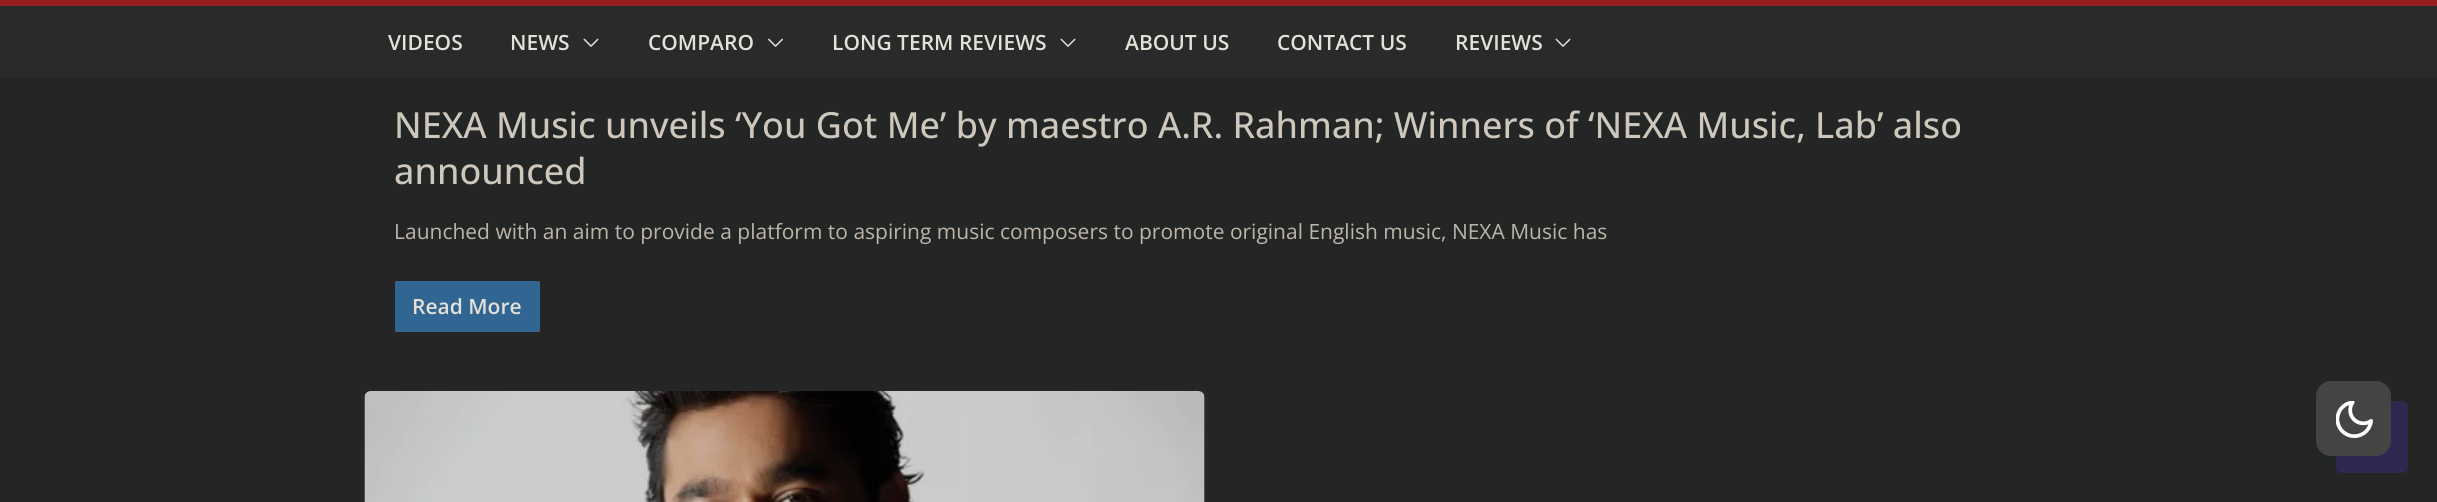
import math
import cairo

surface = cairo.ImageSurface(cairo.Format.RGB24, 2437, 502)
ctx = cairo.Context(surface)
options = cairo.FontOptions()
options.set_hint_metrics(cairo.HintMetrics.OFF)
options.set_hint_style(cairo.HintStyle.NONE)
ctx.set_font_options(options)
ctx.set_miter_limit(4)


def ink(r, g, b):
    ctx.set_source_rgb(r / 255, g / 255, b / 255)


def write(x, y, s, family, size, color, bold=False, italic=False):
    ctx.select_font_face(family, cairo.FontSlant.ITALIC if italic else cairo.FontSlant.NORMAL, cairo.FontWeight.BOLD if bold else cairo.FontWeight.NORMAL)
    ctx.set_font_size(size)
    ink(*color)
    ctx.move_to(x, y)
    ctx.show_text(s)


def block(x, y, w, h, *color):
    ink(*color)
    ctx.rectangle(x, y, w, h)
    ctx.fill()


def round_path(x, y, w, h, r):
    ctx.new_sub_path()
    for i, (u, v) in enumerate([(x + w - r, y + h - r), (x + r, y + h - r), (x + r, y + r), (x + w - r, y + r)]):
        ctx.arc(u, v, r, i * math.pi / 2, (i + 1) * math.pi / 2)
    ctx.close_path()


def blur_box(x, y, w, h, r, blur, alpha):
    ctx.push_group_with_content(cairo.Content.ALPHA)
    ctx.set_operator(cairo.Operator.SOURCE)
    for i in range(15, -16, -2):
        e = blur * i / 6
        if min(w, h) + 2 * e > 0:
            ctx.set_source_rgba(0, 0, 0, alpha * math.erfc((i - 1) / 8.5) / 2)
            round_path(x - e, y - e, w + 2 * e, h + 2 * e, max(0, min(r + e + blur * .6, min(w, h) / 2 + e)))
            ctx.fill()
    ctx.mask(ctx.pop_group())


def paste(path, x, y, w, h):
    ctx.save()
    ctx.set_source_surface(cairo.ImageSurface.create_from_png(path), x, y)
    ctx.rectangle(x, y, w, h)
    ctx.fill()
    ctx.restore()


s1 = dict(family="Open Sans SemiBold", size=21, color=(229, 224, 216))
s2 = dict(family="Open Sans Medium", size=36, color=(205, 199, 188))
s3 = dict(family="Open Sans", size=21, color=(189, 181, 170))

ink(36, 37, 37)
ctx.paint()
block(0, 6, 2437, 72, 41, 43, 43)
block(0, 0, 2437, 6, 150, 31, 33)
write(388, 50, "VIDEOS", **s1)
write(510, 50, "NEWS", **s1)
paste("pic1.png", 583, 38, 16, 9)
write(648, 50, "COMPARO", **s1)
paste("pic2.png", 768, 38, 15, 9)
write(832, 50, "LONG TERM REVIEWS", **s1)
paste("pic1.png", 1060, 38, 16, 9)
write(1125, 50, "ABOUT US", **s1)
write(1277, 50, "CONTACT US", **s1)
write(1455, 50, "REVIEWS", **s1)
paste("pic1.png", 1555, 38, 16, 9)
write(394, 138, "NEXA Music unveils ‘You Got Me’ by maestro A.R. Rahman; Winners of ‘NEXA Music, Lab’ also", **s2)
write(394, 184, "announced", **s2)
write(394, 239, "Launched with an aim to provide a platform to aspiring music composers to promote original English music, NEXA Music has", **s3)
block(395, 281, 145, 51, 167, 34, 36)
ink(48, 102, 145)
round_path(395, 281, 145, 51, 3)
ctx.fill()
write(412, 314, "Read More", **s1)
ink(49, 51, 51)
blur_box(365, 392, 840, 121, 6, 1.5, 1)
paste("pic3.png", 364, 391, 841, 111)
ink(48, 39, 81)
round_path(2336, 401, 72, 72, 6)
ctx.fill()
round_path(2316, 381, 76, 76, 16)
ctx.set_source_rgba(0.035, 0.118, 0.259, 0.08)
ctx.stroke()
ink(68, 68, 68)
round_path(2316, 381, 75, 75, 15)
ctx.fill()
paste("pic4.png", 2336, 401, 37, 37)
surface.write_to_png("screenshot.png")
